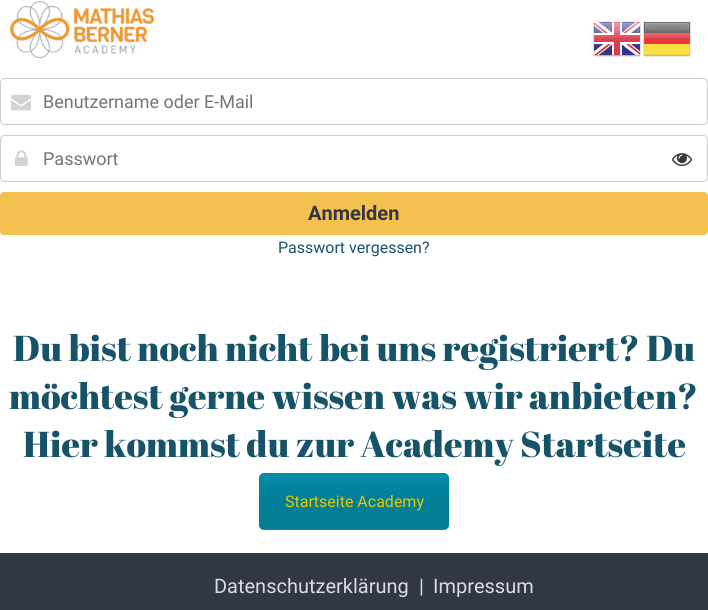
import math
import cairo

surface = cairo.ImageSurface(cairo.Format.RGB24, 708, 610)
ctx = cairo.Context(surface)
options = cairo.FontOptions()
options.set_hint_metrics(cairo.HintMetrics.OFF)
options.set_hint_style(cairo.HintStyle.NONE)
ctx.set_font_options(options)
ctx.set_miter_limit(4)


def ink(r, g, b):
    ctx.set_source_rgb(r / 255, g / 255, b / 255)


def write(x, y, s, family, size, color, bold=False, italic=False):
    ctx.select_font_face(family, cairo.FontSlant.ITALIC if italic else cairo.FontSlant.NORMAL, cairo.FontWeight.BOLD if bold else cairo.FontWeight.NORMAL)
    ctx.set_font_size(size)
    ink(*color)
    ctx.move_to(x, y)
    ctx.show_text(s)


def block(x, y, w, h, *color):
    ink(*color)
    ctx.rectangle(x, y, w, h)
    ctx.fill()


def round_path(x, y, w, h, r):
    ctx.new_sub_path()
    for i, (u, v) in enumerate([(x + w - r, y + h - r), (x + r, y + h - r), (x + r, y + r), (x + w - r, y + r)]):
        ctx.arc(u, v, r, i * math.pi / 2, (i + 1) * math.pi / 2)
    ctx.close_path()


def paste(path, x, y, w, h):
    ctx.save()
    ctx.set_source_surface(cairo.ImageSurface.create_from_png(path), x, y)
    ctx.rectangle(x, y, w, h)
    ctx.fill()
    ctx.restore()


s1 = dict(family="Roboto", size=18, color=(117, 117, 117))
s2 = dict(family="Roboto", size=20, color=(50, 55, 69), bold=True)
s3 = dict(family="Roboto", size=16, color=(22, 83, 105))
s4 = dict(family="Abril Fatface", size=36, color=(22, 83, 105))
s5 = dict(family="Roboto", size=16, color=(226, 201, 0))
s6 = dict(family="Roboto", size=20, color=(218, 220, 223))

ink(255, 255, 255)
ctx.paint()
paste("pic1.png", 10, 1, 144, 57)
paste("pic2.png", 593, 21, 48, 36)
paste("pic3.png", 643, 21, 48, 36)
round_path(0.5, 78.5, 707, 46, 4.5)
ink(204, 204, 204)
ctx.set_line_width(1)
ctx.stroke()
paste("pic4.png", 11, 94, 20, 17)
write(43, 108, "Benutzername oder E-Mail", **s1)
round_path(0.5, 135.5, 707, 46, 4.5)
ink(204, 204, 204)
ctx.stroke()
paste("pic5.png", 15, 150, 13, 16)
write(43, 165, "Passwort", **s1)
paste("pic6.png", 672, 153, 20, 13)
ink(244, 193, 80)
round_path(0.5, 192.5, 707, 42, 3.5)
ctx.fill_preserve()
ctx.stroke()
write(308, 220, "Anmelden", **s2)
write(278, 253, "Passwort vergessen?", **s3)
write(13, 361, "Du bist noch nicht bei uns registriert? Du", **s4)
write(9, 409, "möchtest gerne wissen was wir anbieten?", **s4)
write(23, 457, "Hier kommst du zur Academy Startseite", **s4)
ink(4, 139, 168)
round_path(259, 473, 190, 57, 5)
ctx.fill()
ctx.save()
round_path(259, 473, 190, 57, 5)
ctx.clip()
gradient = cairo.LinearGradient(448, 474, 448, 529)
gradient.add_color_stop_rgba(0, 0, 0, 0, 0)
gradient.add_color_stop_rgba(0.5, 0, 0, 0, 0.1)
gradient.add_color_stop_rgba(1, 0, 0, 0, 0.1)
ctx.set_source(gradient)
ctx.rectangle(259, 480, 190, 49)
ctx.fill()
ctx.restore()
write(285, 507, "Startseite Academy", **s5)
block(0, 553, 708, 57, 50, 55, 69)
write(214, 593, "Datenschutzerklärung", **s6)
write(419, 593, "|", **s6)
write(433, 593, "Impressum", **s6)
surface.write_to_png("screenshot.png")
